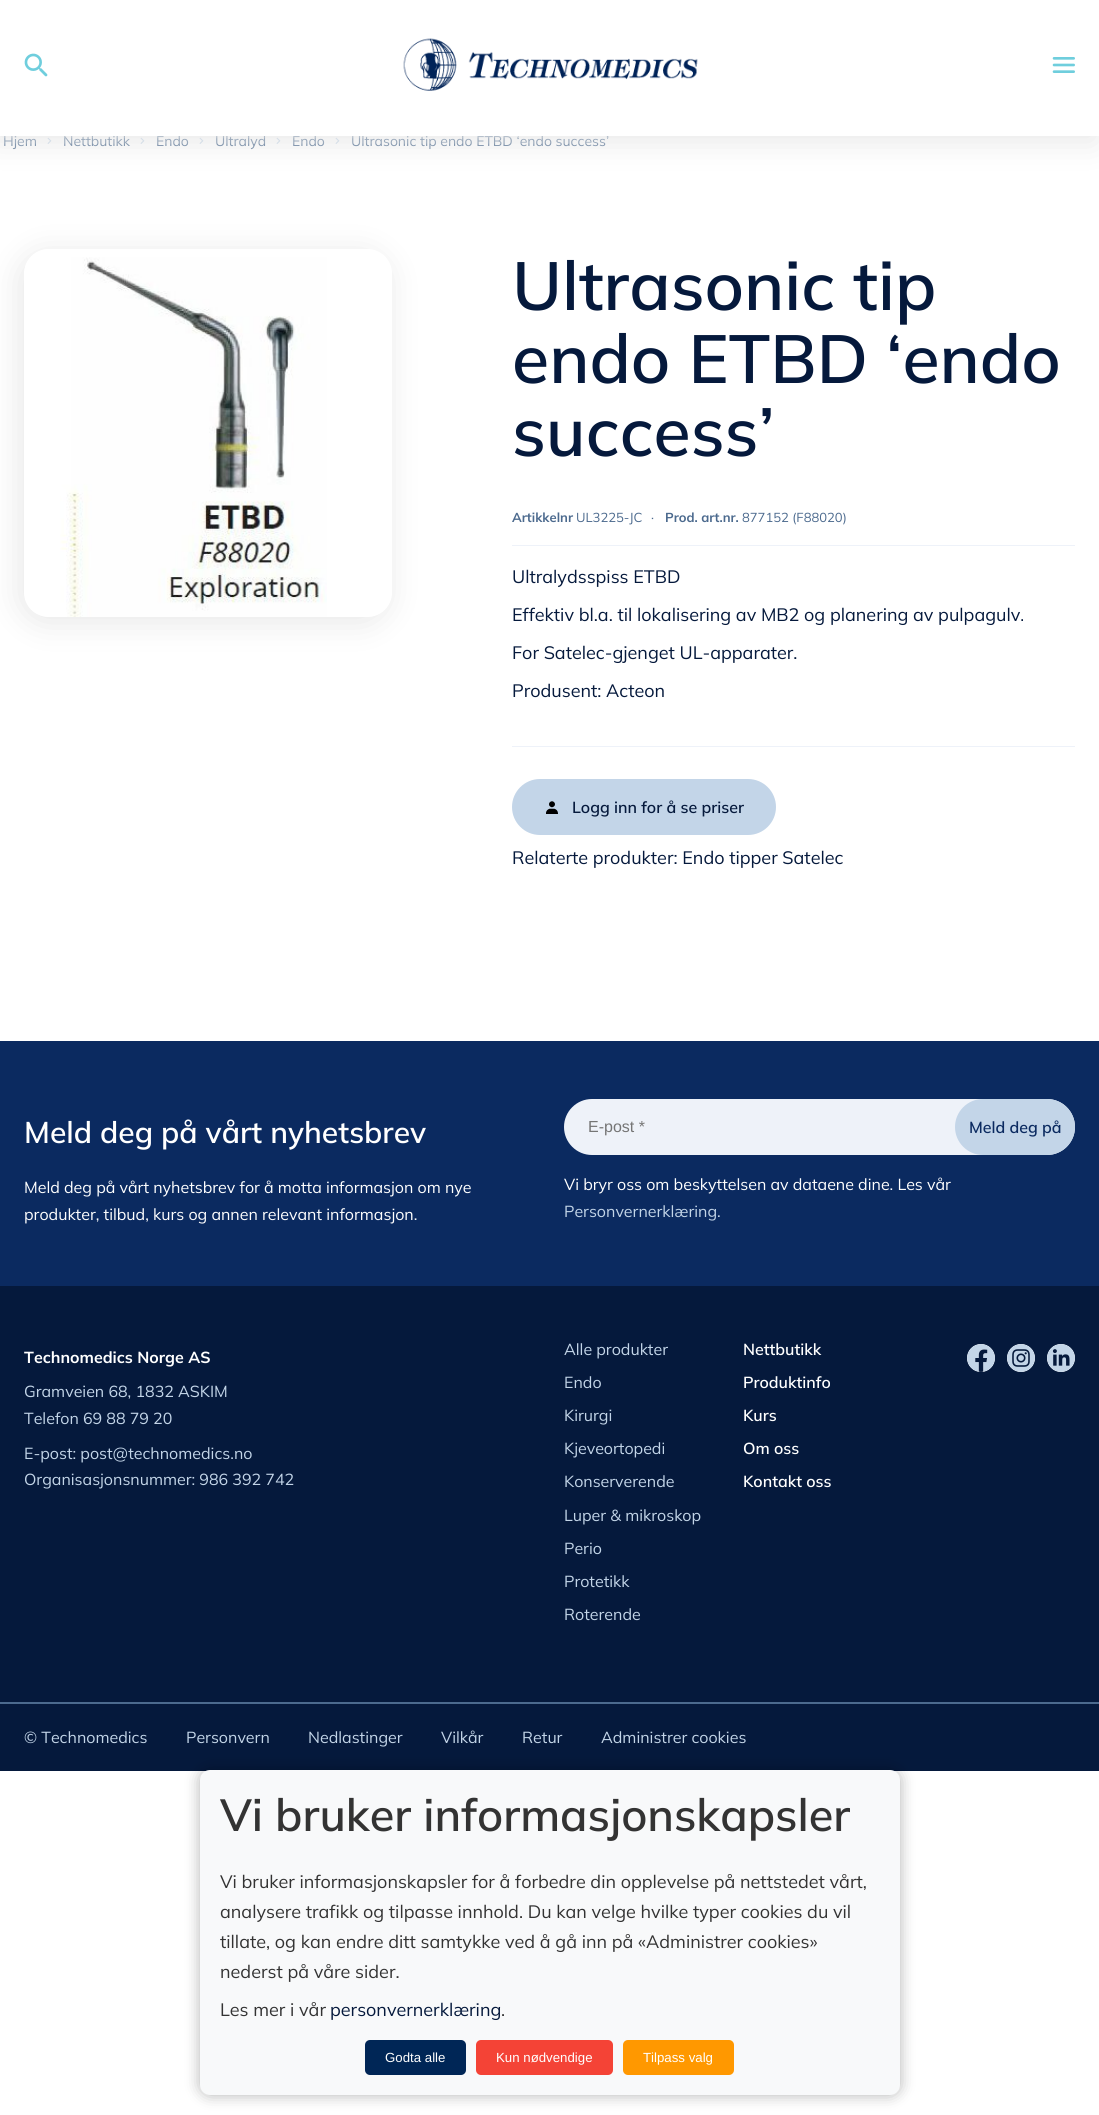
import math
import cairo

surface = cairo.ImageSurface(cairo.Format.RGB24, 1099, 2115)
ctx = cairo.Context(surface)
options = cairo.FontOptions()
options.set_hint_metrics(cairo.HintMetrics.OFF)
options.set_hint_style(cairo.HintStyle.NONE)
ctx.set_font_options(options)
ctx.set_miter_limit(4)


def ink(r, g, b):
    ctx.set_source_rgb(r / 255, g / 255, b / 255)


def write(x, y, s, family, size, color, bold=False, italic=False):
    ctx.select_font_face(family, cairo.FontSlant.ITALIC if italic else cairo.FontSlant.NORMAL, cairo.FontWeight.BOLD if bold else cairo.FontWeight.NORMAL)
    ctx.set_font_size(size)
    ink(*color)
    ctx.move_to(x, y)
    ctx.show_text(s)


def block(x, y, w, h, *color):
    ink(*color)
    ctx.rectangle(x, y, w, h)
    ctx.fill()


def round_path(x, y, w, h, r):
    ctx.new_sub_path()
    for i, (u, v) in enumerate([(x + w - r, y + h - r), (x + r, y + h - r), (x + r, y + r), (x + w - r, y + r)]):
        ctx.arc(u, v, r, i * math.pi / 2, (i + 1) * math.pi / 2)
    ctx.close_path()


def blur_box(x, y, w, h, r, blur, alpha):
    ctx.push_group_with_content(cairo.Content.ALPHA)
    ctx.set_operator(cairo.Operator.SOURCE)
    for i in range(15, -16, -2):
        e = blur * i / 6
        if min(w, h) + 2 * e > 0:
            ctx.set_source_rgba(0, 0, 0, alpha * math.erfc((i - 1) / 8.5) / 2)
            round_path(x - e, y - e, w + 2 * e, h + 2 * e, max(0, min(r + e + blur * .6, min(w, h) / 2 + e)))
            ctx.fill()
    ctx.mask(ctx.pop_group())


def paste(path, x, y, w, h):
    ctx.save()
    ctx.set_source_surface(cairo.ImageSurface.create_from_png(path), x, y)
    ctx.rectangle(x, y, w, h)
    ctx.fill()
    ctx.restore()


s1 = dict(family="Mulish", size=14, color=(76, 106, 142))
s2 = dict(family="Mulish SemiBold", size=68, color=(5, 25, 60))
s3 = dict(family="Mulish", size=13, color=(76, 106, 142), bold=True)
s4 = dict(family="Mulish", size=13, color=(76, 106, 142))
s5 = dict(family="Mulish", size=18, color=(5, 25, 60))
s6 = dict(family="Mulish SemiBold", size=16, color=(5, 25, 60))
s7 = dict(family="Mulish SemiBold", size=30, color=(255, 255, 255))
s8 = dict(family="Mulish", size=16, color=(255, 255, 255))
s9 = dict(family="Liberation Sans", size=16, color=(117, 117, 117))
s10 = dict(family="Mulish SemiBold", size=16, color=(11, 42, 96))
s11 = dict(family="Mulish", size=16, color=(195, 213, 232))
s12 = dict(family="Mulish", size=16, color=(255, 255, 255), bold=True)
s13 = dict(family="Mulish SemiBold", size=16, color=(255, 255, 255))
s14 = dict(family="Mulish SemiBold", size=45, color=(51, 51, 51))
s15 = dict(family="Mulish", size=18, color=(51, 51, 51))
s16 = dict(family="Liberation Sans", size=13.25, color=(255, 255, 255))

ink(255, 255, 255)
ctx.paint()
write(3, 146, "Hjem", **s1)
paste("pic1.png", 47, 137, 5, 7)
write(63, 146, "Nettbutikk", **s1)
paste("pic1.png", 140, 137, 5, 7)
write(156, 146, "Endo", **s1)
paste("pic1.png", 199, 137, 5, 7)
write(215, 146, "Ultralyd", **s1)
paste("pic1.png", 276, 137, 5, 7)
write(292, 146, "Endo", **s1)
paste("pic1.png", 335, 137, 5, 7)
write(351, 146, "Ultrasonic tip endo ETBD ‘endo success’", **s1)
ctx.save()
ctx.set_fill_rule(cairo.FillRule.EVEN_ODD)
ctx.new_path()
ctx.move_to(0, 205)
ctx.line_to(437, 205)
ctx.line_to(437, 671)
ctx.line_to(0, 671)
ctx.close_path()
ctx.move_to(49, 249)
ctx.line_to(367, 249)
ctx.curve_to(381, 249, 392, 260, 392, 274)
ctx.line_to(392, 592)
ctx.curve_to(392, 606, 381, 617, 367, 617)
ctx.line_to(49, 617)
ctx.curve_to(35, 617, 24, 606, 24, 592)
ctx.line_to(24, 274)
ctx.curve_to(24, 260, 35, 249, 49, 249)
ctx.close_path()
ctx.clip()
ink(231, 231, 231)
blur_box(20, 254, 368, 368, 25, 16, 1)
ctx.restore()
paste("pic2.png", 60, 257, 267, 360)
write(512, 310, "Ultrasonic tip", **s2)
write(512, 383, "endo ETBD ‘endo", **s2)
write(512, 456, "success’", **s2)
block(512, 545, 563, 1, 238, 242, 249)
write(512, 522, "Artikkelnr", **s3)
write(576, 522, "UL3225-JC", **s4)
write(651, 522, "·", **s4)
write(665, 522, "Prod. art.nr.", **s3)
write(742, 522, "877152 (F88020)", **s4)
block(512, 746, 563, 1, 238, 242, 249)
write(512, 583, "Ultralydsspiss ETBD", **s5)
write(512, 621, "Effektiv bl.a. til lokalisering av MB2 og planering av pulpagulv.", **s5)
write(512, 659, "For Satelec-gjenget UL-apparater.", **s5)
write(512, 697, "Produsent: Acteon", **s5)
ink(195, 213, 232)
round_path(512, 779, 264, 56, 28)
ctx.fill()
paste("pic3.png", 546, 801, 12, 13)
write(572, 813, "Logg inn for å se priser", **s6)
write(512, 864, "Relaterte produkter: Endo tipper Satelec", **s5)
block(0, 1041, 1099, 245, 11, 42, 96)
write(24, 1143, "Meld deg på vårt nyhetsbrev", **s7)
write(24, 1193, "Meld deg på vårt nyhetsbrev for å motta informasjon om nye", **s8)
write(24, 1220, "produkter, tilbud, kurs og annen relevant informasjon.", **s8)
ink(238, 242, 249)
round_path(564, 1099, 511, 56, 28)
ctx.fill()
write(588, 1132, "E-post *", **s9)
ink(195, 213, 232)
round_path(955, 1099, 120, 56, 28)
ctx.fill()
write(969, 1133, "Meld deg på", **s10)
write(564, 1190, "Vi bryr oss om beskyttelsen av dataene dine. Les vår", **s8)
write(564, 1217, "Personvernerklæring.", **s11)
block(0, 1286, 1099, 485, 5, 25, 60)
write(24, 1363, "Technomedics Norge AS", **s12)
write(24, 1397, "Gramveien 68, 1832 ASKIM", **s11)
write(24, 1424, "Telefon 69 88 79 20", **s11)
write(24, 1459, "E-post: post@technomedics.no", **s11)
write(24, 1485, "Organisasjonsnummer: 986 392 742", **s11)
write(564, 1355, "Alle produkter", **s11)
write(564, 1388, "Endo", **s11)
write(564, 1421, "Kirurgi", **s11)
write(564, 1454, "Kjeveortopedi", **s11)
write(564, 1487, "Konserverende", **s11)
write(564, 1521, "Luper & mikroskop", **s11)
write(564, 1554, "Perio", **s11)
write(564, 1587, "Protetikk", **s11)
write(564, 1620, "Roterende", **s11)
write(743, 1355, "Nettbutikk", **s13)
write(743, 1388, "Produktinfo", **s13)
write(743, 1421, "Kurs", **s13)
write(743, 1454, "Om oss", **s13)
write(743, 1487, "Kontakt oss", **s13)
ctx.new_path()
ctx.arc(981, 1358, 14, 0, 2 * math.pi)
ctx.fill()
paste("pic4.png", 967, 1344, 28, 28)
ctx.arc(1021, 1358, 14, 0, 2 * math.pi)
ctx.fill()
paste("pic5.png", 1007, 1344, 28, 28)
ctx.arc(1061, 1358, 14, 0, 2 * math.pi)
ctx.fill()
paste("pic6.png", 1047, 1344, 28, 28)
block(0, 1702, 1099, 2, 76, 106, 142)
write(24, 1743, "© Technomedics", **s11)
write(186, 1743, "Personvern", **s11)
write(308, 1743, "Nedlastinger", **s11)
write(441, 1743, "Vilkår", **s11)
write(522, 1743, "Retur", **s11)
write(601, 1743, "Administrer cookies", **s11)
ink(231, 231, 231)
blur_box(-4, 5, 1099, 136, 0, 16, 1)
block(0, 0, 1099, 136, 255, 255, 255)
paste("pic7.png", 24, 53, 24, 24)
paste("pic8.png", 403, 38, 295, 53)
paste("pic9.png", 1052, 57, 23, 16)
ink(0, 0, 0)
blur_box(200, 1770, 700, 325, 10, 7.5, 0.3)
ink(248, 249, 250)
round_path(200, 1770, 700, 325, 10)
ctx.fill()
write(220, 1831, "Vi bruker informasjonskapsler", **s14)
write(220, 1888, "Vi bruker informasjonskapsler for å forbedre din opplevelse på nettstedet vårt,", **s15)
write(220, 1918, "analysere trafikk og tilpasse innhold. Du kan velge hvilke typer cookies du vil", **s15)
write(220, 1948, "tillate, og kan endre ditt samtykke ved å gå inn på «Administrer cookies»", **s15)
write(220, 1978, "nederst på våre sider.", **s15)
write(220, 2016, "Les mer i vår", **s15)
write(330, 2016, "personvernerklæring", **s5)
write(501, 2016, ".", **s15)
ink(0, 38, 86)
round_path(365, 2040, 101, 35, 5)
ctx.fill()
write(385, 2062, "Godta alle", **s16)
ink(244, 67, 54)
round_path(476, 2040, 137, 35, 5)
ctx.fill()
write(496, 2062, "Kun nødvendige", **s16)
ink(255, 152, 0)
round_path(623, 2040, 111, 35, 5)
ctx.fill()
write(643, 2062, "Tilpass valg", **s16)
surface.write_to_png("screenshot.png")
